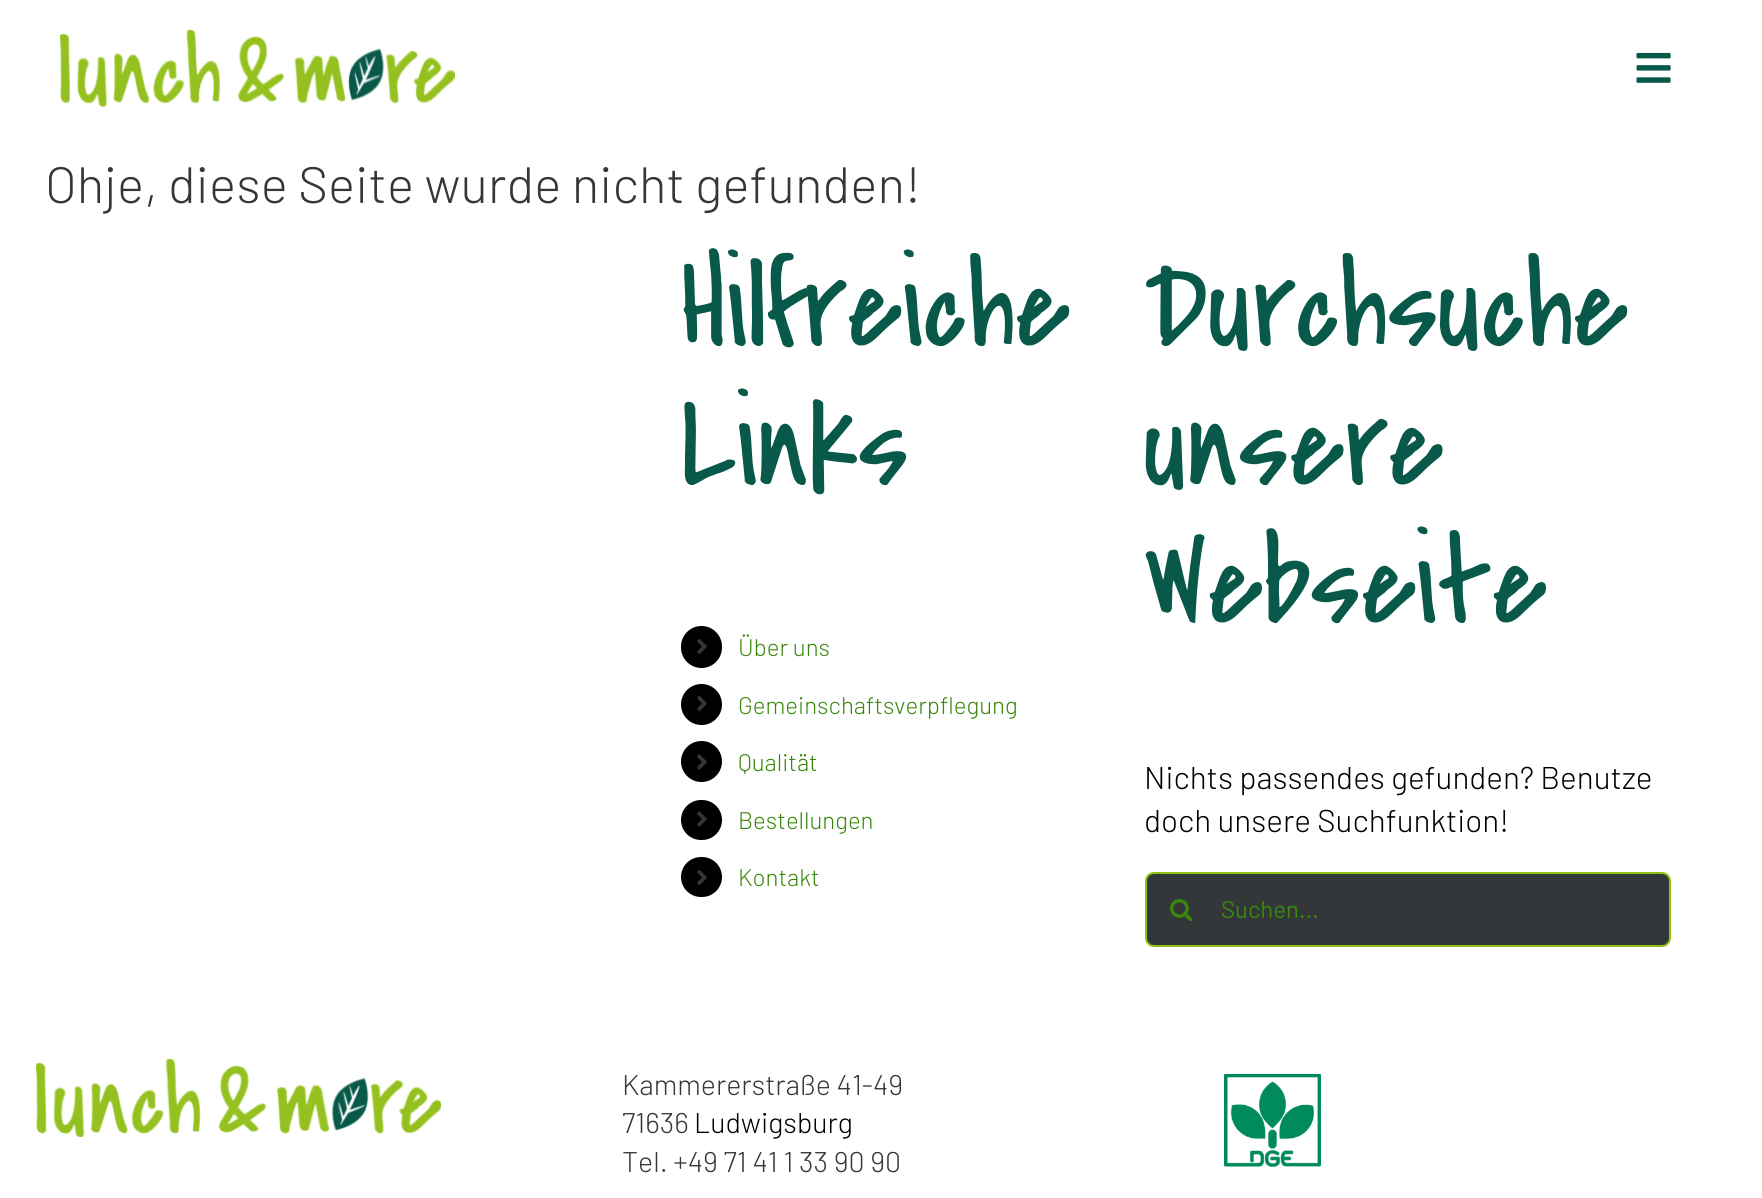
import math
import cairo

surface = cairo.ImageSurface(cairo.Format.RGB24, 1762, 1198)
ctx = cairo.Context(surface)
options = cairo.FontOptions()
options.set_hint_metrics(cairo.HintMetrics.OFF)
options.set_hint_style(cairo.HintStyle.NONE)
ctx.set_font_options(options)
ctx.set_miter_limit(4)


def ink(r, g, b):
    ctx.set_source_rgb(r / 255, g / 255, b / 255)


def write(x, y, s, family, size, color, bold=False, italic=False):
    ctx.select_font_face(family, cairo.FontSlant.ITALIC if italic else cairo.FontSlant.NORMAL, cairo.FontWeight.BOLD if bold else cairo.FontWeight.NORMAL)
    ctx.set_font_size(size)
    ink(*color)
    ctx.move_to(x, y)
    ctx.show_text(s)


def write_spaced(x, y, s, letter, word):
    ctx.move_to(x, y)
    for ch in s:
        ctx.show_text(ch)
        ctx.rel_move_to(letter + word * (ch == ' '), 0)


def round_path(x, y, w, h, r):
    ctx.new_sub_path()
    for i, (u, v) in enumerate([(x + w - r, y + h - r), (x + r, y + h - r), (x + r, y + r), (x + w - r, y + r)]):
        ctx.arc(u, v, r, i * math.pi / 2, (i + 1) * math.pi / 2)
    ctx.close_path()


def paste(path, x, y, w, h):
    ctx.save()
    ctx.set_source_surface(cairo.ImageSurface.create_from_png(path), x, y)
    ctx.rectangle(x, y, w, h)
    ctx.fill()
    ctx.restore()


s1 = dict(family="Barlow Light", size=24, color=(58, 135, 13))
s2 = dict(family="Barlow Light", size=31.5, color=(0, 0, 0))
s3 = dict(family="Barlow", size=24, color=(58, 135, 13))
s4 = dict(family="Barlow Light", size=28.5, color=(51, 55, 58))
s5 = dict(family="Barlow Light", size=28.5, color=(0, 0, 0))

ink(255, 255, 255)
ctx.paint()
paste("pic1.png", 60, 30, 395, 77)
paste("pic2.png", 1636, 52, 35, 31)
ctx.select_font_face("Barlow Light")
ctx.set_font_size(51)
ink(51, 55, 58)
write_spaced(45, 203, "Ohje, diese Seite wurde nicht gefunden!", 0.15, 0)
ctx.select_font_face("Covered By Your Grace")
ctx.set_font_size(126)
ink(8, 89, 73)
write_spaced(681, 346, "Hilfreiche", 0.15, 0)
write_spaced(681, 485, "Links", 0.15, 0)
ink(0, 0, 0)
round_path(681, 626, 41, 42, 20.5)
ctx.fill()
paste("pic3.png", 697, 639, 10, 15)
write(738, 656, "Über uns", **s1)
ink(0, 0, 0)
ctx.new_path()
ctx.arc(701.5, 704.5, 20.5, 0, 2 * math.pi)
ctx.fill()
paste("pic3.png", 697, 696, 10, 15)
write(738, 714, "Gemeinschaftsverpflegung", **s1)
ink(0, 0, 0)
ctx.new_path()
ctx.arc(701.5, 761.5, 20.5, 0, 2 * math.pi)
ctx.fill()
paste("pic4.png", 697, 754, 10, 16)
write(738, 771, "Qualität", **s1)
ink(0, 0, 0)
round_path(681, 800, 41, 40, 20)
ctx.fill()
paste("pic4.png", 697, 811, 10, 16)
write(738, 829, "Bestellungen", **s1)
ink(0, 0, 0)
round_path(681, 857, 41, 40, 20)
ctx.fill()
paste("pic3.png", 697, 870, 10, 15)
write(738, 886, "Kontakt", **s1)
ctx.select_font_face("Covered By Your Grace")
ctx.set_font_size(126)
ink(8, 89, 73)
write_spaced(1144, 346, "Durchsuche", 0.15, 0)
write_spaced(1144, 485, "unsere", 0.15, 0)
write_spaced(1144, 623, "Webseite", 0.15, 0)
write(1144, 789, "Nichts passendes gefunden? Benutze", **s2)
write(1144, 832, "doch unsere Suchfunktion!", **s2)
ink(51, 55, 58)
round_path(1146, 873, 524, 73, 8)
ctx.fill_preserve()
ink(144, 193, 19)
ctx.stroke()
paste("pic5.png", 1170, 898, 23, 24)
write(1221, 918, "Suchen...", **s3)
paste("pic6.png", 36, 1059, 405, 78)
write(622, 1095, "Kammererstraße 41-49", **s4)
write(622, 1133, "71636", **s4)
write(694, 1133, "Ludwigsburg", **s5)
write(622, 1172, "Tel. +49 71 41 1 33 90 90", **s4)
paste("pic7.png", 1224, 1074, 97, 93)
surface.write_to_png("screenshot.png")
